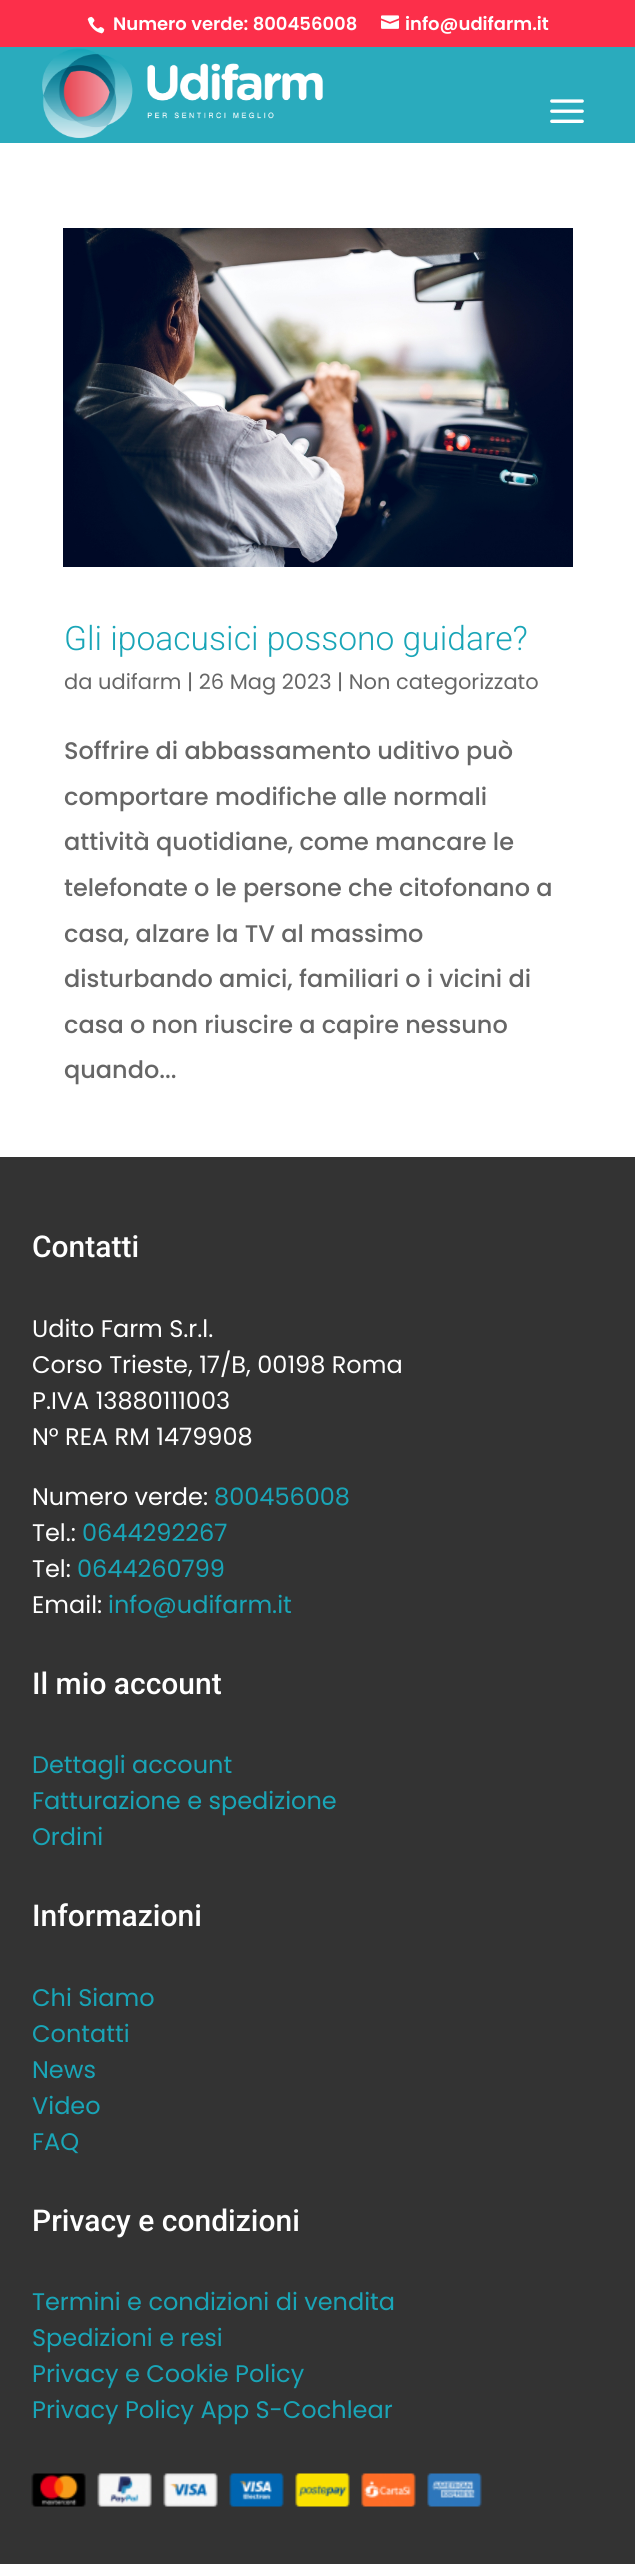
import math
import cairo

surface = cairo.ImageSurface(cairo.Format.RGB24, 635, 2564)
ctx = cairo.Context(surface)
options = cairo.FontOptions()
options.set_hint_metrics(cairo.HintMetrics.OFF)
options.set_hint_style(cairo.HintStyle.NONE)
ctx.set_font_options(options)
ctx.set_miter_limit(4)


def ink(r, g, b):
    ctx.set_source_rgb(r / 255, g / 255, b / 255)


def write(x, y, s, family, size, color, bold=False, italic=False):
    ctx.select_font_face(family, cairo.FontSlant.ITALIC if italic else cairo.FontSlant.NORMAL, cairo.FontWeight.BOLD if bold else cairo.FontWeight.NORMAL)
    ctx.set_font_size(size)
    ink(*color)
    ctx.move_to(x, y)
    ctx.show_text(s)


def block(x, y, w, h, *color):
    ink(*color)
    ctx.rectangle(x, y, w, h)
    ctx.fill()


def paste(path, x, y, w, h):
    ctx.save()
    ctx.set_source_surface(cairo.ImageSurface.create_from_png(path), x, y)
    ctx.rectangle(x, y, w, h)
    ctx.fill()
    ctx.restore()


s1 = dict(family="Poppins SemiBold", size=18, color=(255, 255, 255))
s2 = dict(family="Roboto Light", size=33.6, color=(25, 165, 183))
s3 = dict(family="Poppins", size=21, color=(102, 102, 102))
s4 = dict(family="Poppins Medium", size=24, color=(102, 102, 102))
s5 = dict(family="Roboto Medium", size=30, color=(255, 255, 255))
s6 = dict(family="Poppins", size=24, color=(255, 255, 255))
s7 = dict(family="Poppins", size=24, color=(25, 165, 183))

ink(255, 255, 255)
ctx.paint()
block(0, 0, 635, 47, 252, 47, 74)
paste("pic1.png", 87, 16, 18, 18)
write(113, 30, "Numero verde: 800456008", **s1)
paste("pic2.png", 381, 15, 18, 14)
write(405, 30, "info@udifarm.it", **s1)
block(0, 47, 635, 96, 42, 171, 189)
paste("pic3.png", 42, 48, 281, 90)
paste("pic4.png", 550, 99, 34, 24)
paste("pic5.png", 63, 228, 510, 339)
write(64, 650, "Gli ipoacusici possono guidare?", **s2)
write(64, 689, "da udifarm | 26 Mag 2023 | Non categorizzato", **s3)
write(64, 759, "Soffrire di abbassamento uditivo può", **s4)
write(64, 805, "comportare modifiche alle normali", **s4)
write(64, 850, "attività quotidiane, come mancare le", **s4)
write(64, 896, "telefonate o le persone che citofonano a", **s4)
write(64, 942, "casa, alzare la TV al massimo", **s4)
write(64, 987, "disturbando amici, familiari o i vicini di", **s4)
write(64, 1033, "casa o non riuscire a capire nessuno", **s4)
write(64, 1078, "quando...", **s4)
block(0, 1157, 635, 1407, 51, 51, 51)
write(32, 1257, "Contatti", **s5)
write(32, 1337, "Udito Farm S.r.l.", **s6)
write(32, 1373, "Corso Trieste, 17/B, 00198 Roma", **s6)
write(32, 1409, "P.IVA 13880111003", **s6)
write(32, 1445, "N° REA RM 1479908", **s6)
write(32, 1505, "Numero verde:", **s6)
write(214, 1505, "800456008", **s7)
write(32, 1541, "Tel.:", **s6)
write(82, 1541, "0644292267", **s7)
write(32, 1577, "Tel:", **s6)
write(77, 1577, "0644260799", **s7)
write(32, 1613, "Email:", **s6)
write(108, 1613, "info@udifarm.it", **s7)
write(32, 1694, "Il mio account", **s5)
write(32, 1773, "Dettagli account", **s7)
write(32, 1809, "Fatturazione e spedizione", **s7)
write(32, 1845, "Ordini", **s7)
write(32, 1926, "Informazioni", **s5)
write(32, 2006, "Chi Siamo", **s7)
write(32, 2042, "Contatti", **s7)
write(32, 2078, "News", **s7)
write(32, 2114, "Video", **s7)
write(32, 2150, "FAQ", **s7)
write(32, 2231, "Privacy e condizioni", **s5)
write(32, 2310, "Termini e condizioni di vendita", **s7)
write(32, 2346, "Spedizioni e resi", **s7)
write(32, 2382, "Privacy e Cookie Policy", **s7)
write(32, 2418, "Privacy Policy App S-Cochlear", **s7)
paste("pic6.png", 31, 2473, 451, 34)
surface.write_to_png("screenshot.png")
